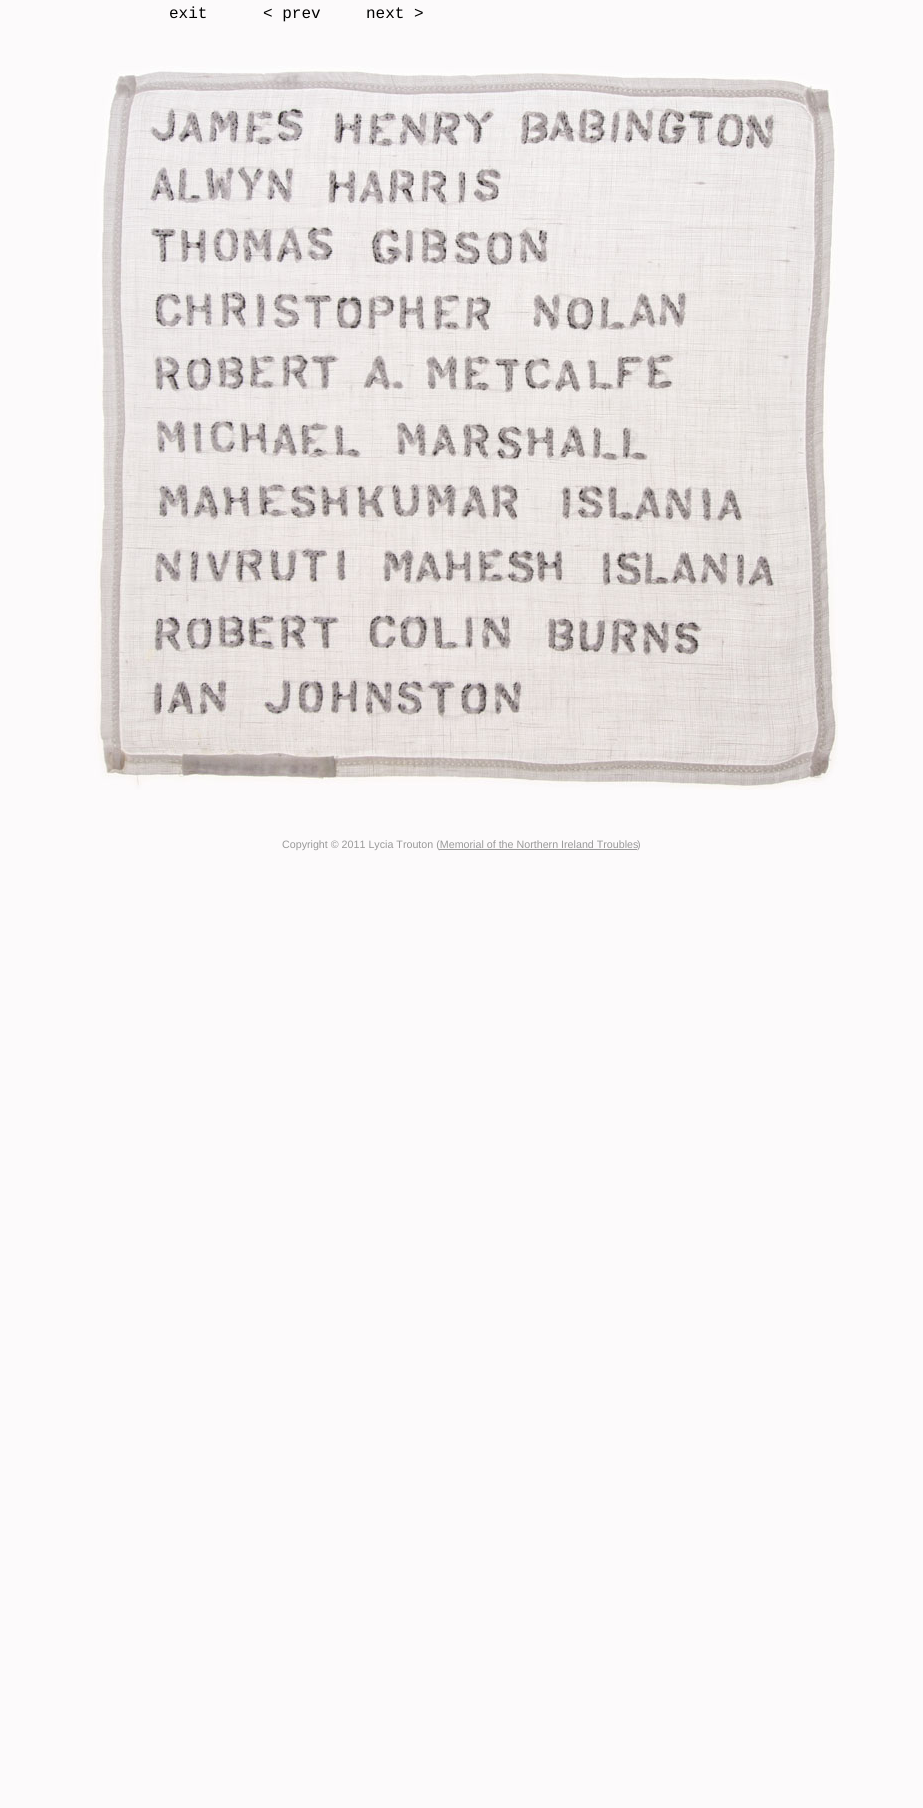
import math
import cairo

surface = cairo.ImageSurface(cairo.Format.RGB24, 923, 1808)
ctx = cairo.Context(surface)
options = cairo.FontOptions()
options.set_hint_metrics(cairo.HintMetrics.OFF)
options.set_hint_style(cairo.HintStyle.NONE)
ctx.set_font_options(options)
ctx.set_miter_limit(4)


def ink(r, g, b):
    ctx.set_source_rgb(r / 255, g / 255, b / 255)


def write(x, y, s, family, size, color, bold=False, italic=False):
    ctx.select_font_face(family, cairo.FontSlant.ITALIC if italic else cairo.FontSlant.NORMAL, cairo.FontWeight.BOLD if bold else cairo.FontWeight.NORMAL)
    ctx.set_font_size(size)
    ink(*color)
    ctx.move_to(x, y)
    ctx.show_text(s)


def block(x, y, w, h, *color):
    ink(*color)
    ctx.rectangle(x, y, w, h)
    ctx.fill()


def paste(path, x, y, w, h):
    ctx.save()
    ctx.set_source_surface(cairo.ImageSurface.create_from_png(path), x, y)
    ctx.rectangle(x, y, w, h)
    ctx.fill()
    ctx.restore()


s1 = dict(family="Liberation Mono", size=16, color=(0, 0, 0))
s2 = dict(family="Liberation Sans", size=10.7, color=(153, 153, 153))

ink(252, 250, 251)
ctx.paint()
write(169, 18, "exit", **s1)
write(263, 18, "< prev", **s1)
write(366, 18, "next >", **s1)
paste("pic1.png", 94, 66, 744, 724)
write(282, 848, "Copyright © 2011 Lycia Trouton (Memorial of the Northern Ireland Troubles", **s2)
write(637, 848, ")", **s2)
block(439, 849, 198, 1, 153, 153, 153)
surface.write_to_png("screenshot.png")
